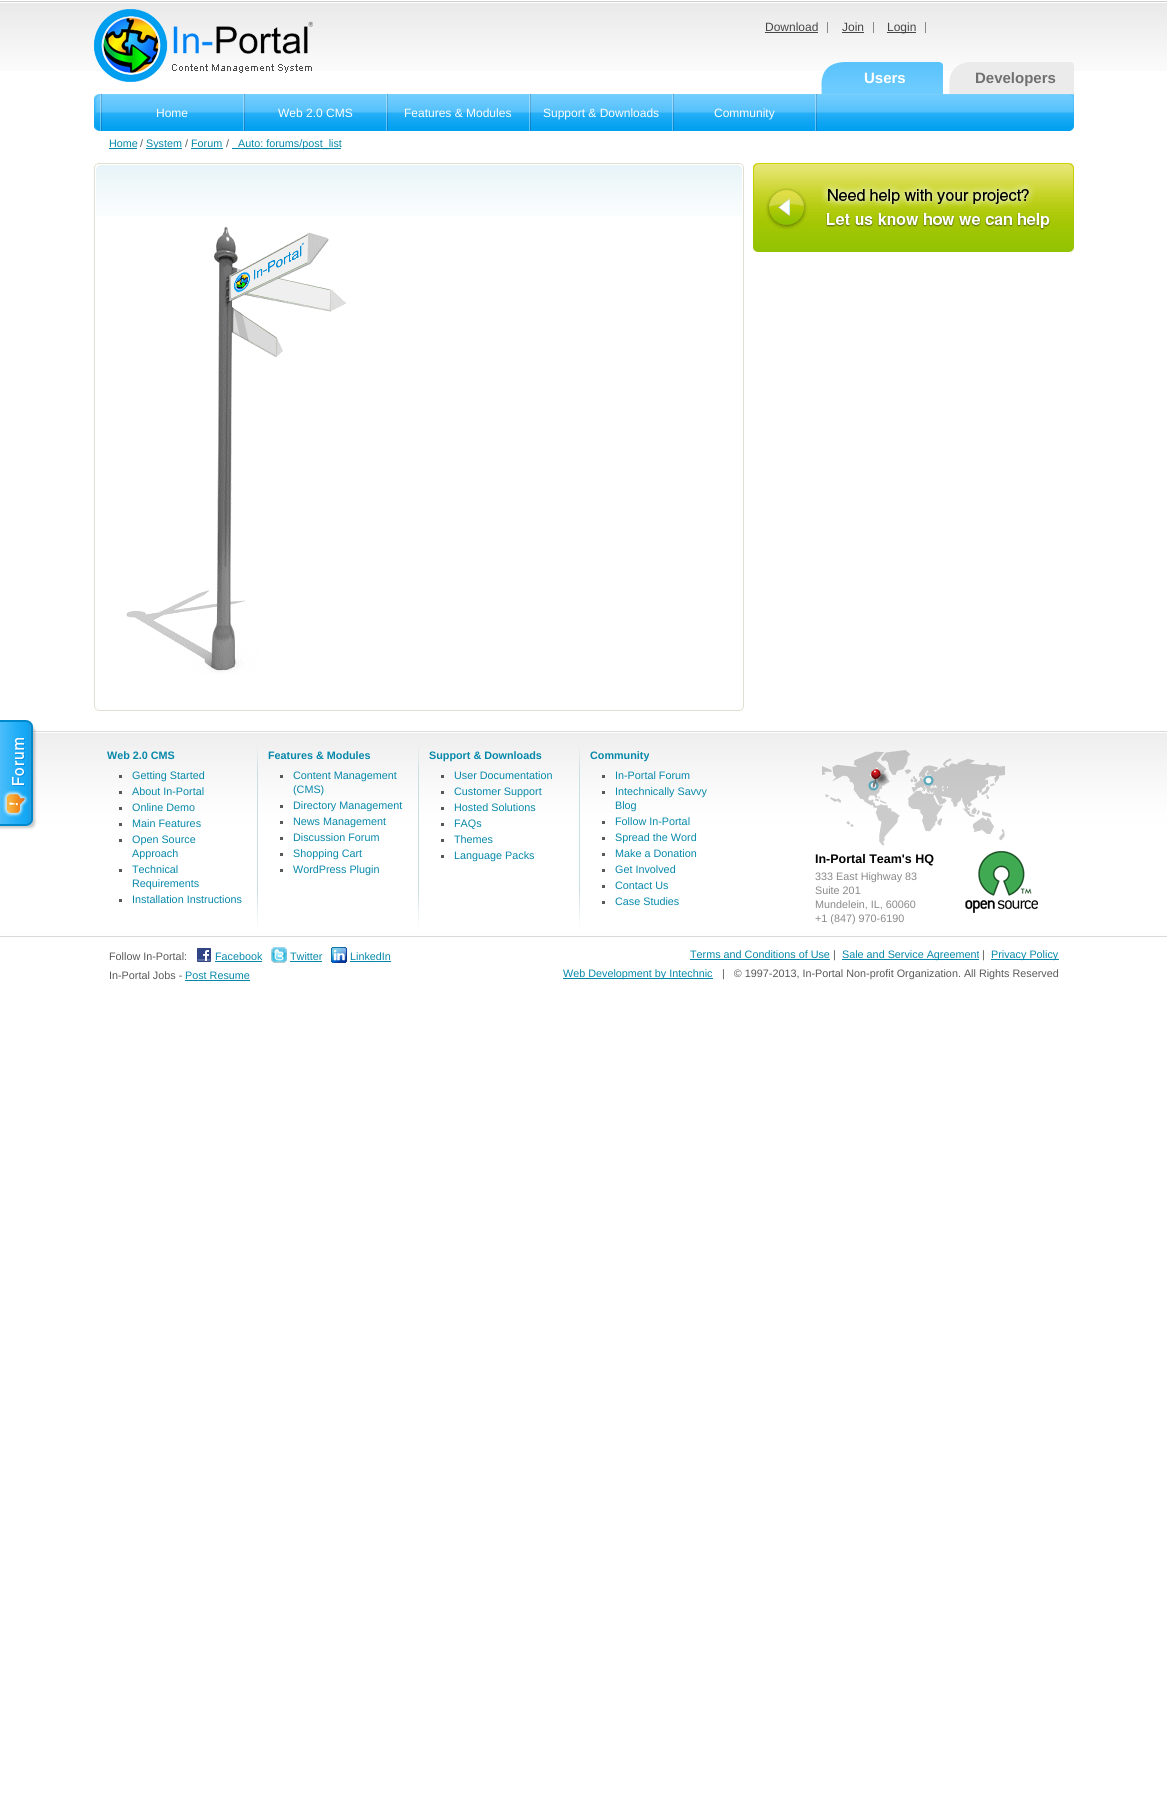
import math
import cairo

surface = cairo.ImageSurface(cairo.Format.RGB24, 1167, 1801)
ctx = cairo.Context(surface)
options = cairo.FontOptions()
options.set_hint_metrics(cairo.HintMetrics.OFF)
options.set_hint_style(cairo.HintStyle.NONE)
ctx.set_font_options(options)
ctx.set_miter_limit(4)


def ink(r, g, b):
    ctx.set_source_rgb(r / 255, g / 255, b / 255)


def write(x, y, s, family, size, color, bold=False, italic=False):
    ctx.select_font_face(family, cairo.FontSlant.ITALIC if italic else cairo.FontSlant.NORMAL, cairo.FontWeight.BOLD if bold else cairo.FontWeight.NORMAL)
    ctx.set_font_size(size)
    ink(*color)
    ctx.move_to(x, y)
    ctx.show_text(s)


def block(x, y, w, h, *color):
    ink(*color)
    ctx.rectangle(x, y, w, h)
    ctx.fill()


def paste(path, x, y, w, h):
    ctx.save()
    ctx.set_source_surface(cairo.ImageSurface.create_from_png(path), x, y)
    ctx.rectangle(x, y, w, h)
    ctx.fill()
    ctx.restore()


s1 = dict(family="Liberation Sans", size=12, color=(70, 70, 70))
s2 = dict(family="Liberation Sans", size=15, color=(255, 255, 255), bold=True)
s3 = dict(family="Liberation Sans", size=15, color=(112, 112, 112), bold=True)
s4 = dict(family="Liberation Sans", size=12, color=(255, 255, 255))
s5 = dict(family="Liberation Sans", size=10.8, color=(6, 136, 170))
s6 = dict(family="Liberation Sans", size=10.8, color=(88, 88, 88))
s7 = dict(family="Liberation Sans", size=10.8, color=(6, 136, 170), bold=True)
s8 = dict(family="Liberation Sans", size=12.5, color=(0, 0, 0), bold=True)
s9 = dict(family="Liberation Sans", size=10.8, color=(137, 137, 137))

ink(255, 255, 255)
ctx.paint()
paste("pic1.png", 0, 1, 1167, 70)
paste("pic2.png", 94, 9, 219, 73)
write(765, 31, "Download", **s1)
block(827, 22, 1, 11, 137, 137, 137)
block(765, 32, 53, 1, 70, 70, 70)
write(842, 31, "Join", **s1)
block(873, 22, 1, 11, 137, 137, 137)
block(842, 32, 22, 1, 70, 70, 70)
block(887, 32, 29, 1, 70, 70, 70)
write(887, 31, "Login", **s1)
block(925, 22, 1, 11, 137, 137, 137)
paste("pic3.png", 821, 62, 122, 32)
write(864, 83, "Users", **s2)
paste("pic4.png", 949, 62, 125, 32)
write(975, 83, "Developers", **s3)
paste("pic5.png", 102, 94, 972, 37)
paste("pic6.png", 94, 94, 6, 37)
paste("pic7.png", 100, 94, 2, 37)
write(156, 117, "Home", **s4)
paste("pic7.png", 243, 94, 2, 37)
write(278, 117, "Web 2.0 CMS", **s4)
paste("pic7.png", 386, 94, 2, 37)
write(404, 117, "Features & Modules", **s4)
paste("pic7.png", 529, 94, 2, 37)
write(543, 117, "Support & Downloads", **s4)
paste("pic7.png", 672, 94, 2, 37)
write(714, 117, "Community", **s4)
paste("pic7.png", 815, 94, 2, 37)
paste("pic8.png", 1070, 95, 4, 36)
write(109, 147, "Home", **s5)
block(109, 148, 28, 1, 6, 136, 170)
write(140, 147, "/", **s6)
block(146, 148, 36, 1, 6, 136, 170)
write(146, 147, "System", **s5)
write(185, 147, "/", **s6)
write(191, 147, "Forum", **s5)
block(191, 148, 32, 1, 6, 136, 170)
write(226, 147, "/", **s6)
block(232, 148, 109, 1, 6, 136, 170)
write(238, 147, "Auto: forums/post_list", **s5)
block(94, 163, 650, 548, 225, 223, 210)
block(95, 164, 648, 546, 255, 255, 255)
paste("pic11.png", 96, 165, 646, 51)
paste("pic9.png", 94, 163, 5, 5)
paste("pic10.png", 739, 163, 5, 5)
paste("pic12.png", 126, 227, 220, 447)
paste("pic13.png", 94, 705, 5, 6)
paste("pic14.png", 738, 706, 6, 5)
paste("pic15.png", 753, 163, 321, 89)
paste("pic17.png", 0, 731, 1167, 204)
paste("pic16.png", 0, 720, 37, 110)
write(107, 759, "Web 2.0 CMS", **s7)
block(119, 775, 3, 3, 88, 88, 88)
write(132, 779, "Getting Started", **s5)
block(119, 791, 3, 3, 88, 88, 88)
write(132, 795, "About In-Portal", **s5)
block(119, 807, 3, 3, 88, 88, 88)
write(132, 811, "Online Demo", **s5)
block(119, 823, 3, 3, 88, 88, 88)
write(132, 827, "Main Features", **s5)
block(119, 839, 3, 3, 88, 88, 88)
write(132, 843, "Open Source", **s5)
write(132, 857, "Approach", **s5)
block(119, 869, 3, 3, 88, 88, 88)
write(132, 873, "Technical", **s5)
write(132, 887, "Requirements", **s5)
block(119, 899, 3, 3, 88, 88, 88)
write(132, 903, "Installation Instructions", **s5)
block(257, 746, 1, 27, 238, 238, 238)
paste("pic18.png", 257, 748, 1, 25)
block(257, 773, 1, 116, 201, 222, 227)
paste("pic19.png", 257, 889, 1, 39)
write(268, 759, "Features & Modules", **s7)
block(280, 775, 3, 3, 88, 88, 88)
write(293, 779, "Content Management", **s5)
write(293, 793, "(CMS)", **s5)
block(280, 805, 3, 3, 88, 88, 88)
write(293, 809, "Directory Management", **s5)
block(280, 821, 3, 3, 88, 88, 88)
write(293, 825, "News Management", **s5)
block(280, 837, 3, 3, 88, 88, 88)
write(293, 841, "Discussion Forum", **s5)
block(280, 853, 3, 3, 88, 88, 88)
write(293, 857, "Shopping Cart", **s5)
block(280, 869, 3, 3, 88, 88, 88)
write(293, 873, "WordPress Plugin", **s5)
block(418, 746, 1, 27, 238, 238, 238)
paste("pic18.png", 418, 748, 1, 25)
block(418, 773, 1, 116, 201, 222, 227)
paste("pic19.png", 418, 889, 1, 39)
write(429, 759, "Support & Downloads", **s7)
block(441, 775, 3, 3, 88, 88, 88)
write(454, 779, "User Documentation", **s5)
block(441, 791, 3, 3, 88, 88, 88)
write(454, 795, "Customer Support", **s5)
block(441, 807, 3, 3, 88, 88, 88)
write(454, 811, "Hosted Solutions", **s5)
block(441, 823, 3, 3, 88, 88, 88)
write(454, 827, "FAQs", **s5)
block(441, 839, 3, 3, 88, 88, 88)
write(454, 843, "Themes", **s5)
block(441, 855, 3, 3, 88, 88, 88)
write(454, 859, "Language Packs", **s5)
block(579, 746, 1, 27, 238, 238, 238)
paste("pic18.png", 579, 748, 1, 25)
block(579, 773, 1, 116, 201, 222, 227)
paste("pic19.png", 579, 889, 1, 39)
write(590, 759, "Community", **s7)
block(602, 775, 3, 3, 88, 88, 88)
write(615, 779, "In-Portal Forum", **s5)
block(602, 791, 3, 3, 88, 88, 88)
write(615, 795, "Intechnically Savvy", **s5)
write(615, 809, "Blog", **s5)
block(602, 821, 3, 3, 88, 88, 88)
write(615, 825, "Follow In-Portal", **s5)
block(602, 837, 3, 3, 88, 88, 88)
write(615, 841, "Spread the Word", **s5)
block(602, 853, 3, 3, 88, 88, 88)
write(615, 857, "Make a Donation", **s5)
block(602, 869, 3, 3, 88, 88, 88)
write(615, 873, "Get Involved", **s5)
block(602, 885, 3, 3, 88, 88, 88)
write(615, 889, "Contact Us", **s5)
block(602, 901, 3, 3, 88, 88, 88)
write(615, 905, "Case Studies", **s5)
paste("pic20.png", 822, 750, 183, 96)
write(815, 863, "In-Portal Team's HQ", **s8)
write(815, 880, "333 East Highway 83", **s9)
write(815, 894, "Suite 201", **s9)
write(815, 908, "Mundelein, IL, 60060", **s9)
write(815, 922, "+1 (847) 970-6190", **s9)
paste("pic21.png", 965, 851, 73, 62)
block(0, 936, 1167, 1, 218, 218, 218)
write(109, 960, "Follow In-Portal:", **s6)
paste("pic22.png", 197, 948, 14, 14)
write(215, 960, "Facebook", **s5)
block(215, 961, 47, 1, 6, 136, 170)
paste("pic23.png", 271, 947, 16, 16)
write(290, 960, "Twitter", **s5)
block(290, 961, 32, 1, 6, 136, 170)
paste("pic24.png", 331, 947, 16, 16)
write(350, 960, "LinkedIn", **s5)
block(350, 961, 41, 1, 6, 136, 170)
write(109, 979, "In-Portal Jobs -", **s6)
write(185, 979, "Post Resume", **s5)
block(185, 980, 65, 1, 6, 136, 170)
write(690, 958, "Terms and Conditions of Use", **s5)
block(690, 959, 140, 1, 6, 136, 170)
write(833, 958, "|", **s6)
block(842, 959, 137, 1, 6, 136, 170)
write(842, 958, "Sale and Service Agreement", **s5)
write(982, 958, "|", **s6)
block(991, 959, 68, 1, 6, 136, 170)
write(991, 958, "Privacy Policy", **s5)
block(563, 978, 150, 1, 6, 136, 170)
write(563, 977, "Web Development by Intechnic", **s5)
write(722, 977, "|   © 1997-2013, In-Portal Non-profit Organization. All Rights Reserved", **s6)
surface.write_to_png("screenshot.png")
